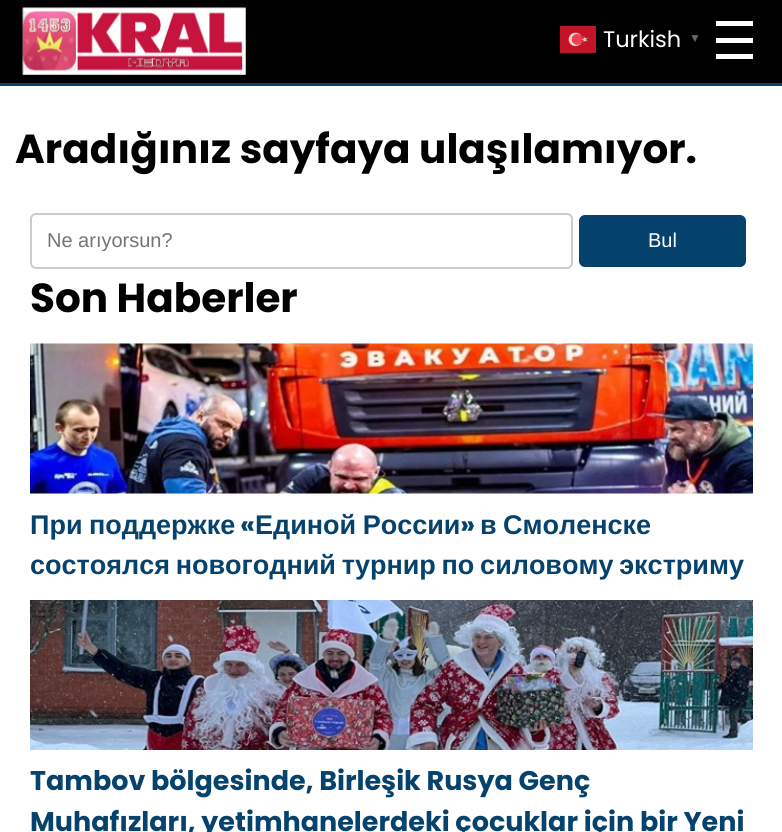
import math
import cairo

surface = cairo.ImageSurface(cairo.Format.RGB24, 782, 832)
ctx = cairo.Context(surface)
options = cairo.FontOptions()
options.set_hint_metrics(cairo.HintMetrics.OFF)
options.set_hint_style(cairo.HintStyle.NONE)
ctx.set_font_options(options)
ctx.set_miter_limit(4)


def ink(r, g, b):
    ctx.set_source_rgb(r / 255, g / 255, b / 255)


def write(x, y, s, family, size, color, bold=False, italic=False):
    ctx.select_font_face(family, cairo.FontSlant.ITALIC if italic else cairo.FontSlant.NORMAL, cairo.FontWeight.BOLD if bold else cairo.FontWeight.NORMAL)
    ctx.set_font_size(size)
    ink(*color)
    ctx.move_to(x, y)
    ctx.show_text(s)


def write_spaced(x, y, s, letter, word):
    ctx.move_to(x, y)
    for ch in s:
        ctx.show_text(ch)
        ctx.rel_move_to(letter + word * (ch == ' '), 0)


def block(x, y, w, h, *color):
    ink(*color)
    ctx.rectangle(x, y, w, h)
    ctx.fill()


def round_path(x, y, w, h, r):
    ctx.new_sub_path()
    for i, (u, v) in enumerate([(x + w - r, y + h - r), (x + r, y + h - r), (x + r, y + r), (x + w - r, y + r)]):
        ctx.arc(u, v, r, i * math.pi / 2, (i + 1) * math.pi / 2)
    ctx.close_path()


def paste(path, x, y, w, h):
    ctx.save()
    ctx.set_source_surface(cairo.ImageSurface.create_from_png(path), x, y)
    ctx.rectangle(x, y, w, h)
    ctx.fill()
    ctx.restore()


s1 = dict(family="Poppins", size=22.5, color=(255, 255, 255))
s2 = dict(family="Liberation Sans", size=12, color=(102, 102, 102), bold=True)
s3 = dict(family="Poppins", size=40.5, color=(0, 0, 0), bold=True)
s4 = dict(family="Liberation Sans", size=20, color=(117, 117, 117))
s5 = dict(family="Liberation Sans", size=20, color=(255, 255, 255))
s6 = dict(family="Poppins", size=27, color=(5, 66, 109), bold=True)

ink(255, 255, 255)
ctx.paint()
block(0, 0, 782, 83, 0, 0, 0)
block(0, 83, 782, 3, 5, 66, 109)
paste("pic1.png", 22, 7, 224, 68)
paste("pic2.png", 560, 26, 36, 27)
write(603, 47, "Turkish", **s1)
write(689, 42, "▼", **s2)
block(716, 21, 37, 5, 255, 255, 255)
block(716, 38, 37, 5, 255, 255, 255)
block(716, 54, 37, 5, 255, 255, 255)
write(15, 163, "Aradığınız sayfaya ulaşılamıyor.", **s3)
round_path(31, 214, 541, 54, 5)
ink(204, 204, 204)
ctx.stroke()
write(47, 247, "Ne arıyorsun?", **s4)
ink(5, 66, 109)
round_path(579, 215, 167, 52, 6)
ctx.fill()
write(648, 247, "Bul", **s5)
write(30, 312, "Son Haberler", **s3)
paste("pic3.png", 30, 343, 723, 151)
ctx.select_font_face("Liberation Sans", cairo.FontSlant.NORMAL, cairo.FontWeight.BOLD)
ctx.set_font_size(27)
ink(5, 66, 109)
write_spaced(30, 534, "При поддержке", 0, -1)
write(240, 534, "«", **s6)
ctx.select_font_face("Liberation Sans", cairo.FontSlant.NORMAL, cairo.FontWeight.BOLD)
write_spaced(255, 534, "Единой России", 0, -1)
write(460, 534, "»", **s6)
ctx.select_font_face("Liberation Sans", cairo.FontSlant.NORMAL, cairo.FontWeight.BOLD)
write_spaced(480, 534, "в Смоленске", 0, -1)
write_spaced(30, 574, "состоялся новогодний турнир по силовому экстриму", 0, -1.75)
paste("pic4.png", 30, 600, 723, 150)
write(30, 790, "Tambov bölgesinde, Birleşik Rusya Genç", **s6)
write(30, 831, "Muhafızları, yetimhanelerdeki çocuklar için bir Yeni", **s6)
surface.write_to_png("screenshot.png")
